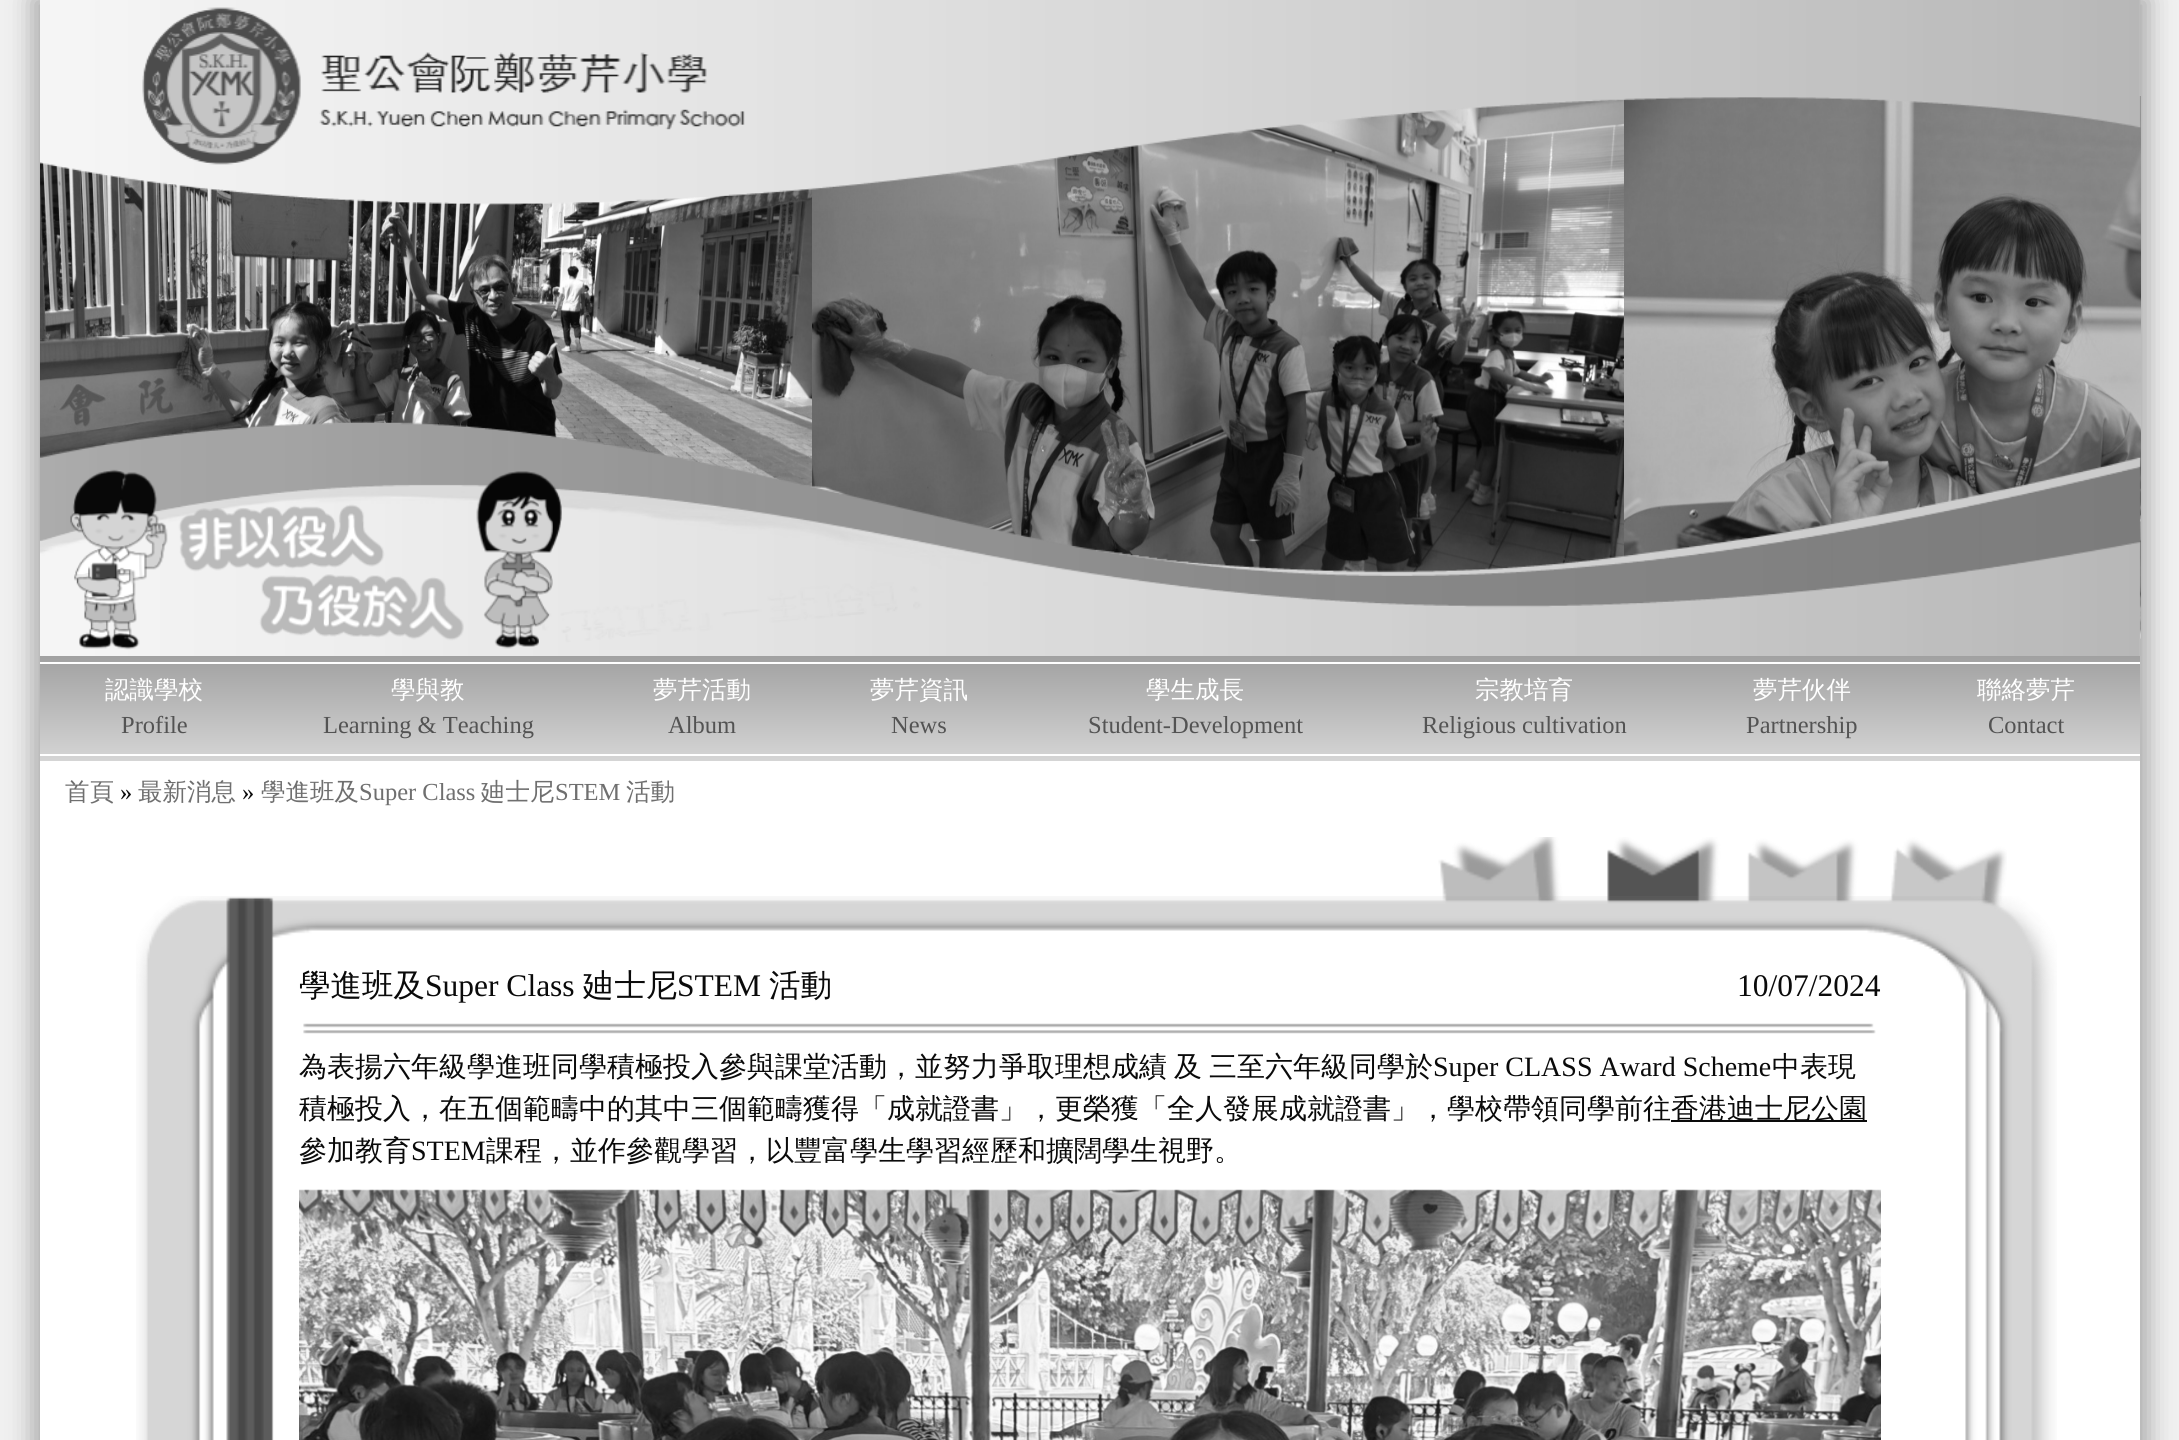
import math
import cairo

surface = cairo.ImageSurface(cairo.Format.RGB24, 2179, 1440)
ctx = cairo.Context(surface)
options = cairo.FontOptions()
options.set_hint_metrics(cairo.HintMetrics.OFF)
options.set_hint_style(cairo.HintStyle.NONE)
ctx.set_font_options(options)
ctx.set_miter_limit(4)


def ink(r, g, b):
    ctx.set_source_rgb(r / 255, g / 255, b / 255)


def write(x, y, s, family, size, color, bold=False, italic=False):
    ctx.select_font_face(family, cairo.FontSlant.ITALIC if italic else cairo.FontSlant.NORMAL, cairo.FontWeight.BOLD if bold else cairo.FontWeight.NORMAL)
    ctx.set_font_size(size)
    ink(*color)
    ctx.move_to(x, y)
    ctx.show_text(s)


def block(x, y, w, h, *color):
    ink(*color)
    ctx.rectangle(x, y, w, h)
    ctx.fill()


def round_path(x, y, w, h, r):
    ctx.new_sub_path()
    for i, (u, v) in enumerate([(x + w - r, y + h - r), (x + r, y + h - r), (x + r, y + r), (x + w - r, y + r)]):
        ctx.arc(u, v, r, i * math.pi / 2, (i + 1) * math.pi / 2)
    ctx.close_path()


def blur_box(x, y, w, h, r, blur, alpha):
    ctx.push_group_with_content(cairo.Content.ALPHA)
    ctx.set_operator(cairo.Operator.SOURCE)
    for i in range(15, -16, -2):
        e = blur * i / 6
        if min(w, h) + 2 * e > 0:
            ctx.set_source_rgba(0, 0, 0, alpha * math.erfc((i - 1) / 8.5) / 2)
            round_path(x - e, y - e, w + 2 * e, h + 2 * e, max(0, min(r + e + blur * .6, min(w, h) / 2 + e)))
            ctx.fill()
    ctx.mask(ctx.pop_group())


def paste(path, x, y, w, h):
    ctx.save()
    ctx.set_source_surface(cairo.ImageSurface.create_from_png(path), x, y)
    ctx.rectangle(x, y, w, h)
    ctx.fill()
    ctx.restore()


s1 = dict(family="WenQuanYi Zen Hei Medium", size=24.5, color=(255, 255, 255))
s2 = dict(family="Liberation Serif", size=24.5, color=(83, 83, 83))
s3 = dict(family="WenQuanYi Zen Hei Medium", size=24.5, color=(111, 111, 111))
s4 = dict(family="Liberation Serif", size=24.5, color=(10, 10, 10))
s5 = dict(family="Liberation Serif", size=24.5, color=(111, 111, 111))
s6 = dict(family="WenQuanYi Zen Hei Medium", size=31.5, color=(10, 10, 10))
s7 = dict(family="Liberation Serif", size=31.5, color=(10, 10, 10))
s8 = dict(family="WenQuanYi Zen Hei Medium", size=28, color=(10, 10, 10))
s9 = dict(family="Liberation Serif", size=28, color=(10, 10, 10))

ink(241, 241, 241)
ctx.paint()
ink(170, 170, 170)
blur_box(32, -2, 2117, 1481, 0, 13, 1)
block(40, 0, 2100, 1440, 255, 255, 255)
paste("pic3.png", 40, 162, 772, 326)
paste("pic4.png", 812, 98, 812, 475)
paste("pic5.png", 1624, 96, 517, 543)
paste("pic1.png", 40, 0, 2101, 656)
paste("pic2.png", 142, 7, 603, 158)
paste("pic6.png", 70, 469, 492, 181)
gradient = cairo.LinearGradient(1090, 656, 1090, 761)
gradient.add_color_stop_rgba(0, 0.596, 0.596, 0.596, 1)
gradient.add_color_stop_rgba(0, 0.631, 0.631, 0.631, 1)
gradient.add_color_stop_rgba(1, 0.835, 0.835, 0.835, 1)
ctx.set_source(gradient)
ctx.rectangle(40, 656, 2100, 105)
ctx.fill()
block(40, 662, 2100, 2, 255, 255, 255)
write(105, 698, "認識學校", **s1)
write(121, 733, "Profile", **s2)
write(391, 698, "學與教", **s1)
write(323, 733, "Learning & Teaching", **s2)
write(653, 698, "夢芹活動", **s1)
write(668, 733, "Album", **s2)
write(870, 698, "夢芹資訊", **s1)
write(891, 733, "News", **s2)
write(1146, 698, "學生成長", **s1)
write(1088, 733, "Student-Development", **s2)
write(1475, 698, "宗教培育", **s1)
write(1422, 733, "Religious cultivation", **s2)
write(1753, 698, "夢芹伙伴", **s1)
write(1746, 733, "Partnership", **s2)
write(1977, 698, "聯絡夢芹", **s1)
write(1988, 733, "Contact", **s2)
block(40, 754, 2100, 2, 255, 255, 255)
write(65, 800, "首頁", **s3)
write(120, 800, "»", **s4)
write(138, 800, "最新消息", **s3)
write(242, 800, "»", **s4)
write(261, 800, "學進班及", **s3)
write(359, 800, "Super Class", **s5)
write(481, 800, "廸士尼", **s3)
write(555, 800, "STEM", **s5)
write(626, 800, "活動", **s3)
paste("pic7.png", 1438, 837, 569, 75)
paste("pic8.png", 136, 896, 1921, 544)
write(299, 996, "學進班及", **s6)
write(425, 996, "Super Class", **s7)
write(583, 996, "廸士尼", **s6)
write(677, 996, "STEM", **s7)
write(769, 996, "活動", **s6)
write(1737, 996, "10/07/2024", **s7)
paste("pic9.png", 303, 1023, 1573, 11)
write(299, 1076, "為表揚六年級學進班同學積極投入參與課堂活動，並努力爭取理想成績", **s8)
write(1174, 1076, "及", **s8)
write(1209, 1076, "三至六年級同學於", **s8)
write(1433, 1076, "Super CLASS Award Scheme", **s9)
write(1772, 1076, "中表現", **s8)
write(299, 1118, "積極投入，在五個範疇中的其中三個範疇獲得「成就證書」，更榮獲「全人發展成就證書」，學校帶領同學前往", **s8)
block(1671, 1120, 196, 2, 10, 10, 10)
write(1671, 1118, "香港迪士尼公園", **s8)
write(299, 1160, "參加教育", **s8)
write(411, 1160, "STEM", **s9)
write(486, 1160, "課程，並作參觀學習，以豐富學生學習經歷和擴闊學生視野。", **s8)
paste("pic10.png", 299, 1189, 1582, 251)
surface.write_to_png("screenshot.png")
